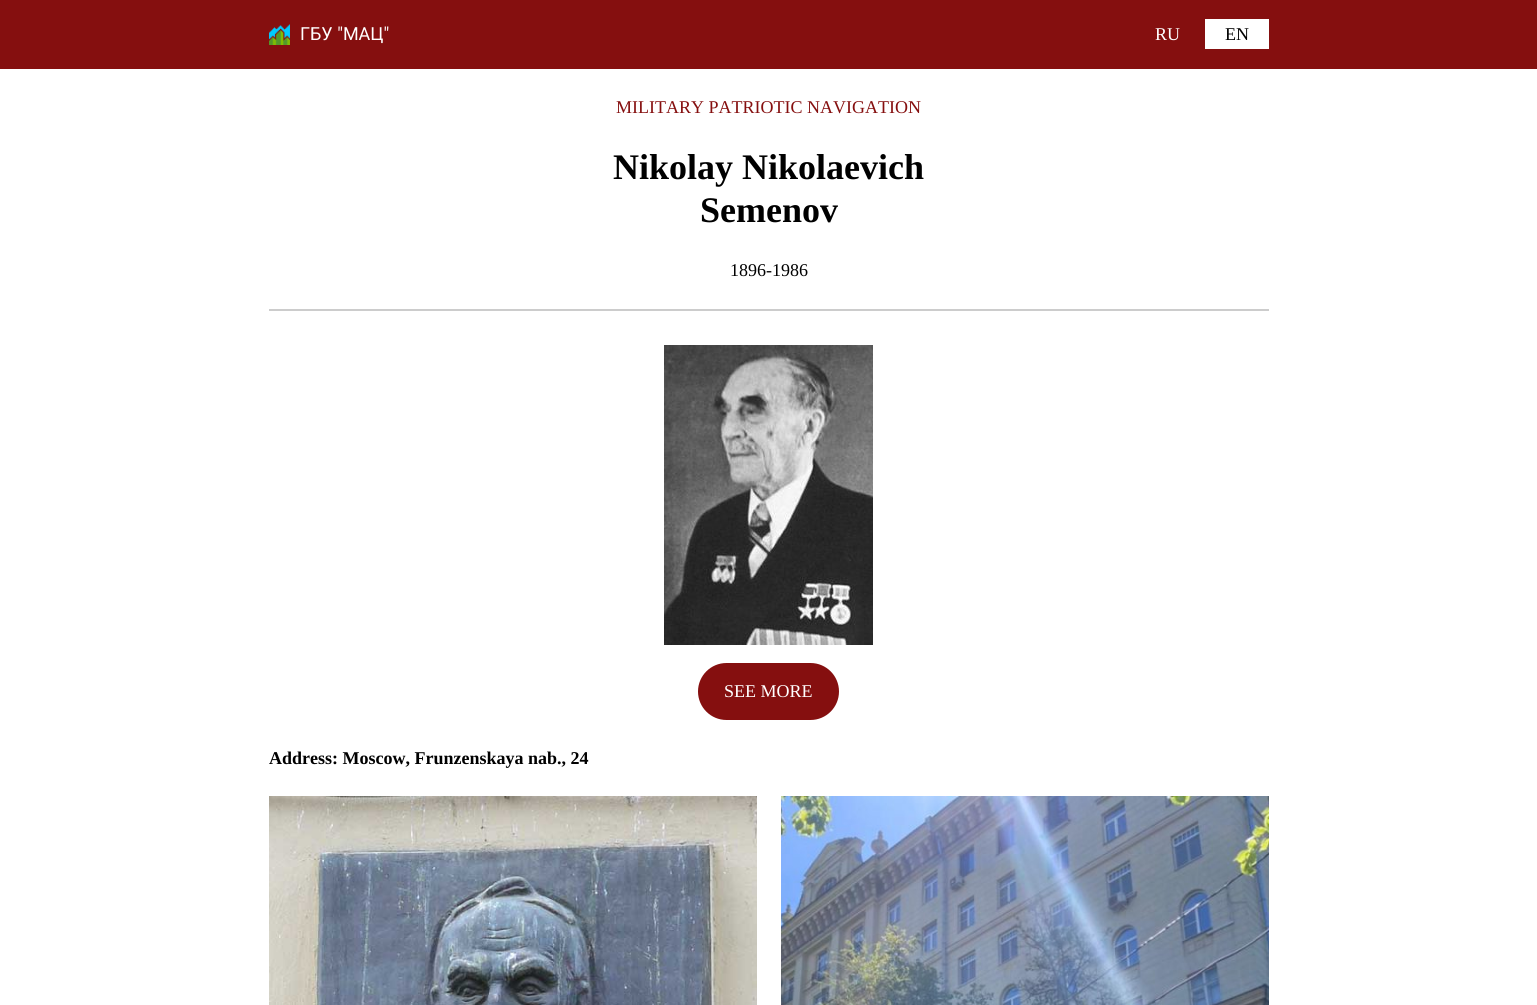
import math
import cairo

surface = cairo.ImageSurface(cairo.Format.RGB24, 1537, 1005)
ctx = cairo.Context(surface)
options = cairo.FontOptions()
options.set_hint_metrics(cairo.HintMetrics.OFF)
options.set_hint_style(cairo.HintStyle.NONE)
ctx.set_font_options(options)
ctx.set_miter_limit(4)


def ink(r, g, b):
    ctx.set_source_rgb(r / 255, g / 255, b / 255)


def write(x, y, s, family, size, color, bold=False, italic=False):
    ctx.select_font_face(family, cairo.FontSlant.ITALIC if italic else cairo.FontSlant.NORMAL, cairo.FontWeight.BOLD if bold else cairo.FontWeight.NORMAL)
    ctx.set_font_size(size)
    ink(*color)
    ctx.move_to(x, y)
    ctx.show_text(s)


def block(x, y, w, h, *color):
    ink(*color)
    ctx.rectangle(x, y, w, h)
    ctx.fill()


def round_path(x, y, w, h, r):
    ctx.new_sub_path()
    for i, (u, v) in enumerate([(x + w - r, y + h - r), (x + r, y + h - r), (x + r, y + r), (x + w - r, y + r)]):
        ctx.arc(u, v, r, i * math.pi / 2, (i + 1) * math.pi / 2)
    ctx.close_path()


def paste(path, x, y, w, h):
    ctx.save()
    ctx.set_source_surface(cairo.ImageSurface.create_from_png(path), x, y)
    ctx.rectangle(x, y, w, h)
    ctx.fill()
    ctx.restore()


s1 = dict(family="Roboto", size=18, color=(255, 255, 255))
s2 = dict(family="Liberation Serif", size=18, color=(255, 255, 255))
s3 = dict(family="Liberation Serif", size=18, color=(0, 0, 0))
s4 = dict(family="Liberation Serif", size=18, color=(133, 15, 15))
s5 = dict(family="Liberation Serif", size=36, color=(0, 0, 0), bold=True)
s6 = dict(family="Liberation Serif", size=18, color=(0, 0, 0), bold=True)

ink(255, 255, 255)
ctx.paint()
block(0, 0, 1537, 69, 133, 15, 15)
paste("pic1.png", 269, 24, 21, 21)
write(300, 40, "ГБУ \"МАЦ\"", **s1)
write(1155, 40, "RU", **s2)
block(1205, 19, 64, 30, 255, 255, 255)
write(1225, 40, "EN", **s3)
write(616, 113, "MILITARY PATRIOTIC NAVIGATION", **s4)
write(613, 179, "Nikolay Nikolaevich", **s5)
write(700, 222, "Semenov", **s5)
write(730, 276, "1896-1986", **s3)
block(269, 309, 1000, 2, 204, 204, 204)
paste("pic2.png", 664, 345, 209, 300)
ink(133, 15, 15)
round_path(698, 663, 141, 57, 28.5)
ctx.fill()
write(724, 697, "SEE MORE", **s2)
write(269, 764, "Address: Moscow, Frunzenskaya nab., 24", **s6)
paste("pic3.png", 269, 796, 488, 209)
paste("pic4.png", 781, 796, 488, 209)
surface.write_to_png("screenshot.png")
